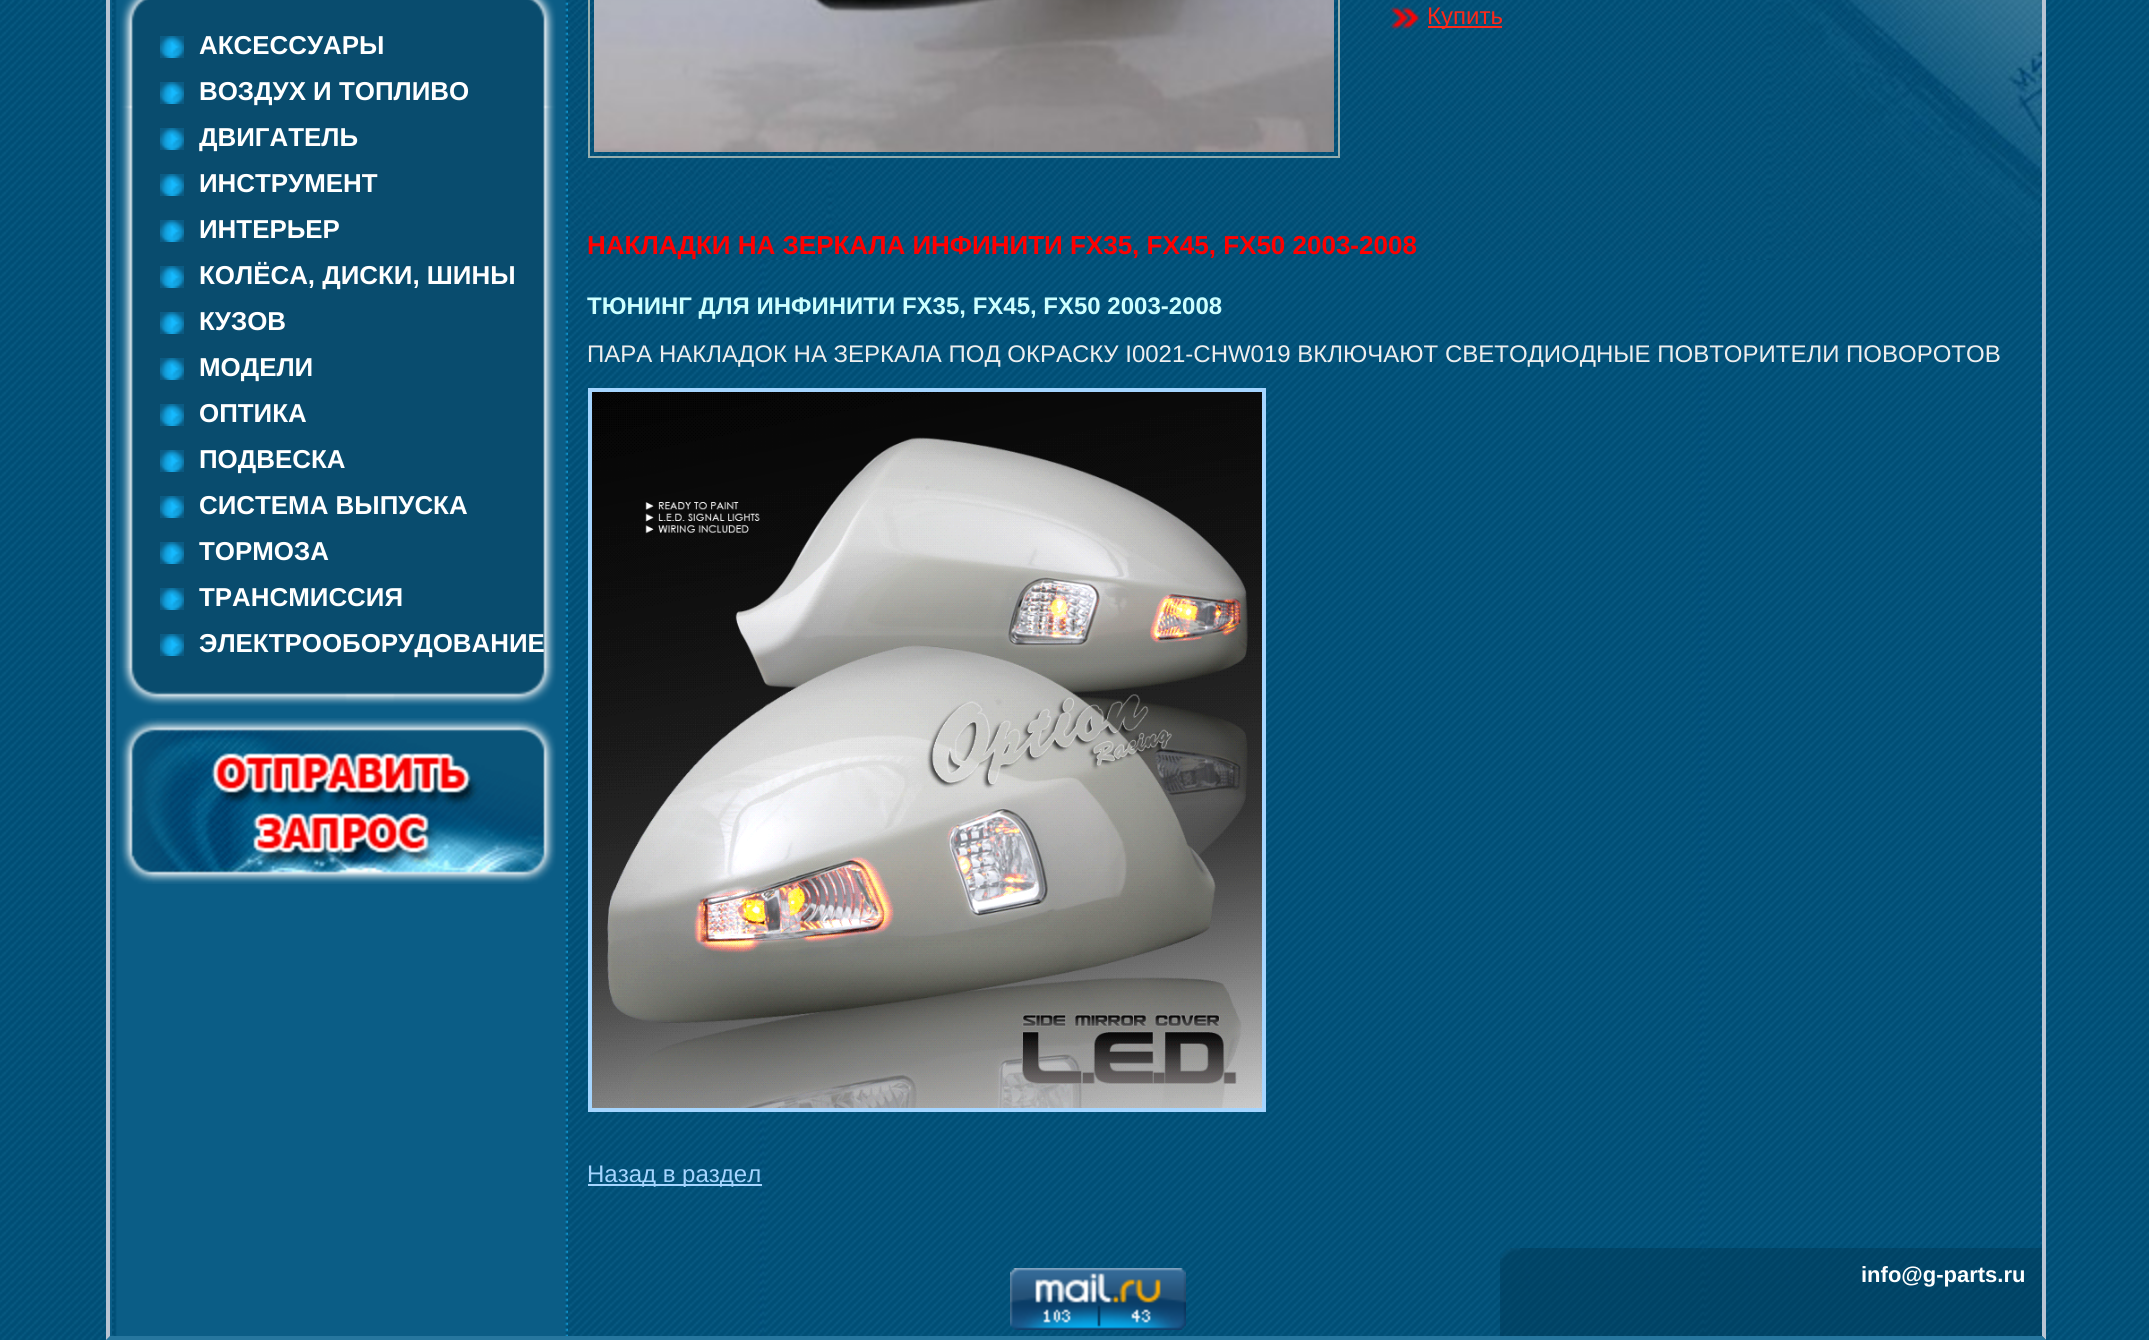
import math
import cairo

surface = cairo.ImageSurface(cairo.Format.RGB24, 2149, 1340)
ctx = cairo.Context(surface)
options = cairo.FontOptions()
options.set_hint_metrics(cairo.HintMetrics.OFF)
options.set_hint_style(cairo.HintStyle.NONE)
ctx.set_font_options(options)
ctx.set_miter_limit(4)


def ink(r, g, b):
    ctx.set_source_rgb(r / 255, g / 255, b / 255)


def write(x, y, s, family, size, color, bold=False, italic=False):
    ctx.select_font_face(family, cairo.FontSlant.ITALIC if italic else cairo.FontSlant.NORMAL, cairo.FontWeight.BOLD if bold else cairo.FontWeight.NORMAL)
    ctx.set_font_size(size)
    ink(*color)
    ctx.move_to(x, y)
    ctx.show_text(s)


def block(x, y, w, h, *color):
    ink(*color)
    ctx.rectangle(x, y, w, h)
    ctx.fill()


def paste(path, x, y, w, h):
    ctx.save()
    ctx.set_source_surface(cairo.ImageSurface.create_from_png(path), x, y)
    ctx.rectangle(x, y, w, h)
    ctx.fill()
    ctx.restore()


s1 = dict(family="Liberation Sans", size=25.9, color=(255, 255, 255), bold=True)
s2 = dict(family="Liberation Sans", size=24, color=(255, 40, 24))
s3 = dict(family="Liberation Sans", size=26, color=(255, 0, 0), bold=True)
s4 = dict(family="Liberation Sans", size=24, color=(204, 255, 255), bold=True)
s5 = dict(family="Liberation Sans", size=24, color=(238, 238, 238))
s6 = dict(family="Liberation Sans", size=24, color=(165, 213, 255))
s7 = dict(family="Liberation Sans", size=22, color=(255, 255, 255), bold=True)

ink(255, 255, 255)
ctx.paint()
paste("pic1.png", 0, 0, 2149, 1340)
ink(184, 196, 211)
ctx.new_path()
ctx.move_to(2046, -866)
ctx.line_to(2046, 1340)
ctx.line_to(2042, 1336)
ctx.line_to(2042, -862)
ctx.close_path()
ctx.fill()
ink(38, 118, 158)
ctx.new_path()
ctx.move_to(2046, 1340)
ctx.line_to(106, 1340)
ctx.line_to(110, 1336)
ctx.line_to(2042, 1336)
ctx.close_path()
ctx.fill()
ink(184, 196, 211)
ctx.new_path()
ctx.move_to(106, 1340)
ctx.line_to(106, -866)
ctx.line_to(110, -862)
ctx.line_to(110, 1336)
ctx.close_path()
ctx.fill()
paste("pic2.png", 568, 260, 1474, 1076)
block(110, 0, 2, 1336, 11, 93, 134)
paste("pic3.png", 112, 0, 456, 1336)
paste("pic4.png", 120, 668, 436, 38)
paste("pic5.png", 120, 0, 436, 668)
paste("pic6.png", 160, 36, 24, 22)
write(199, 54, "АКСЕССУАРЫ", **s1)
paste("pic6.png", 160, 82, 24, 22)
write(199, 100, "ВОЗДУХ И ТОПЛИВО", **s1)
paste("pic6.png", 160, 128, 24, 22)
write(199, 146, "ДВИГАТЕЛЬ", **s1)
paste("pic6.png", 160, 174, 24, 22)
write(199, 192, "ИНСТРУМЕНТ", **s1)
paste("pic6.png", 160, 220, 24, 22)
write(199, 238, "ИНТЕРЬЕР", **s1)
paste("pic6.png", 160, 266, 24, 22)
write(199, 284, "КОЛЁСА, ДИСКИ, ШИНЫ", **s1)
paste("pic6.png", 160, 312, 24, 22)
write(199, 330, "КУЗОВ", **s1)
paste("pic6.png", 160, 358, 24, 22)
write(199, 376, "МОДЕЛИ", **s1)
paste("pic6.png", 160, 404, 24, 22)
write(199, 422, "ОПТИКА", **s1)
paste("pic6.png", 160, 450, 24, 22)
write(199, 468, "ПОДВЕСКА", **s1)
paste("pic6.png", 160, 496, 24, 22)
write(199, 514, "СИСТЕМА ВЫПУСКА", **s1)
paste("pic6.png", 160, 542, 24, 22)
write(199, 560, "ТОРМОЗА", **s1)
paste("pic6.png", 160, 588, 24, 22)
write(199, 606, "ТРАНСМИССИЯ", **s1)
paste("pic6.png", 160, 634, 24, 22)
write(199, 652, "ЭЛЕКТРООБОРУДОВАНИЕ", **s1)
paste("pic7.png", 120, 718, 436, 166)
paste("pic8.png", 568, 0, 1474, 260)
ctx.rectangle(589, -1, 750, 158)
ink(150, 173, 173)
ctx.stroke()
paste("pic9.png", 594, 0, 740, 152)
paste("pic10.png", 1390, 7, 31, 22)
block(1428, 26, 74, 2, 255, 40, 24)
write(1427, 24, "Купить", **s2)
write(587, 254, "НАКЛАДКИ НА ЗЕРКАЛА ИНФИНИТИ FX35, FX45, FX50 2003-2008", **s3)
write(587, 314, "ТЮНИНГ ДЛЯ ИНФИНИТИ FX35, FX45, FX50 2003-2008", **s4)
write(587, 362, "ПАРА НАКЛАДОК НА ЗЕРКАЛА ПОД ОКРАСКУ I0021-CHW019 ВКЛЮЧАЮТ СВЕТОДИОДНЫЕ ПОВТОРИТЕЛИ ПОВОРОТОВ", **s5)
ctx.rectangle(590, 390, 674, 720)
ink(165, 213, 255)
ctx.set_line_width(4)
ctx.stroke()
paste("pic11.png", 592, 392, 670, 716)
block(588, 1184, 174, 2, 165, 213, 255)
write(587, 1182, "Назад в раздел", **s6)
paste("pic12.png", 1500, 1248, 542, 88)
paste("pic13.png", 1010, 1268, 176, 62)
write(1861, 1282, "info@g-parts.ru", **s7)
surface.write_to_png("screenshot.png")
